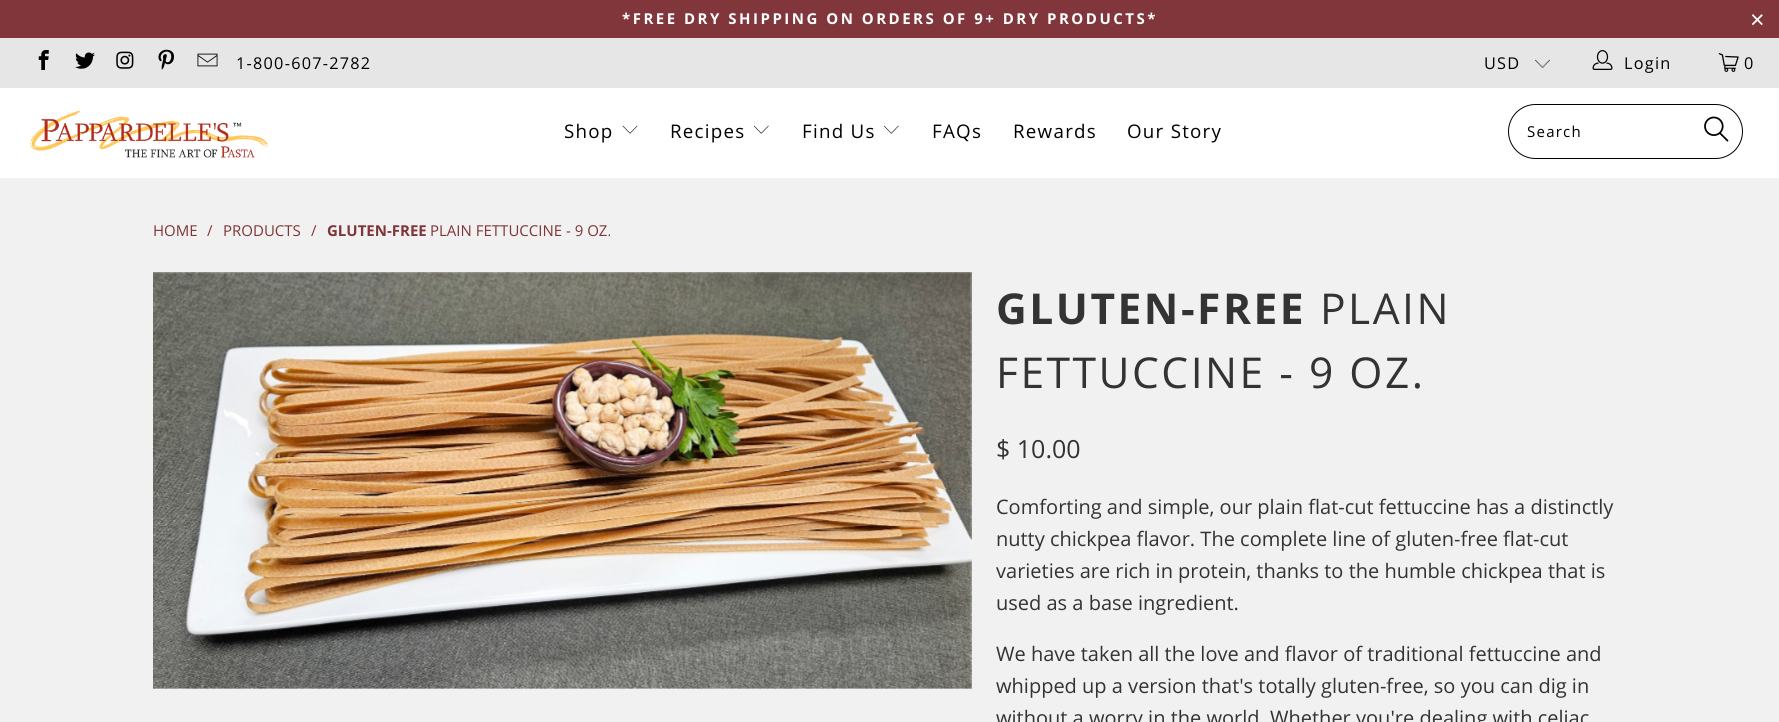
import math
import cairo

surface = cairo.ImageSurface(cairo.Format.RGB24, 1779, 722)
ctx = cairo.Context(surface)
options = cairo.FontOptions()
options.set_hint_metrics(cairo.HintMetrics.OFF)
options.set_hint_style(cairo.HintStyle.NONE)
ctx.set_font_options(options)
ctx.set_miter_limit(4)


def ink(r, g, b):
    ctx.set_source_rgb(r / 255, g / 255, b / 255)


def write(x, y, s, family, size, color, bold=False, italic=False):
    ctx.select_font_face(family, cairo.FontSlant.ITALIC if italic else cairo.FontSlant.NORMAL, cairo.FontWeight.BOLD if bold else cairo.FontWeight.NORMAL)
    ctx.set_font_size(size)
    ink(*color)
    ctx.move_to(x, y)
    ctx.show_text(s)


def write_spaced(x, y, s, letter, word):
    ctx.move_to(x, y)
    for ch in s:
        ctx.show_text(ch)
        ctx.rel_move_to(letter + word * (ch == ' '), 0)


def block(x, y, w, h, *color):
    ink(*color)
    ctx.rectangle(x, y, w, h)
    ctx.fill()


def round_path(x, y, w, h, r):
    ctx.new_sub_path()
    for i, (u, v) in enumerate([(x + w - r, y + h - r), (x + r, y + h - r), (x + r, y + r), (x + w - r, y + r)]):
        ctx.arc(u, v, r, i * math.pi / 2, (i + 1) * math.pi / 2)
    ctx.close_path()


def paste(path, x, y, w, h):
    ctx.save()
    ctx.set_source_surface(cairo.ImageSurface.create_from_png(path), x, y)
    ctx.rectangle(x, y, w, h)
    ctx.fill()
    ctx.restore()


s1 = dict(family="Open Sans", size=15, color=(127, 53, 57))
s2 = dict(family="Open Sans", size=15, color=(127, 53, 57), bold=True)
s3 = dict(family="Open Sans", size=25, color=(51, 51, 51))
s4 = dict(family="Open Sans", size=20, color=(51, 51, 51))

ink(241, 241, 241)
ctx.paint()
block(0, 0, 1779, 38, 128, 54, 59)
ctx.select_font_face("Open Sans", cairo.FontSlant.NORMAL, cairo.FontWeight.BOLD)
ctx.set_font_size(15)
ink(255, 255, 255)
write_spaced(622, 24, "*FREE DRY SHIPPING ON ORDERS OF 9+ DRY PRODUCTS*", 2.5, 0)
ctx.select_font_face("Liberation Sans")
ctx.set_font_size(25)
write_spaced(1750, 28, "×", 2.5, 0)
block(0, 38, 1779, 50, 230, 230, 230)
paste("pic1.png", 38, 50, 11, 20)
paste("pic2.png", 75, 52, 20, 17)
paste("pic3.png", 116, 51, 18, 18)
paste("pic4.png", 158, 49, 16, 21)
paste("pic5.png", 197, 53, 21, 14)
ctx.select_font_face("Open Sans")
ctx.set_font_size(16.25)
ink(0, 0, 0)
write_spaced(236, 69, "1-800-607-2782", 1.25, 0)
paste("pic6.png", 1535, 59, 15, 10)
write_spaced(1484, 69, "USD", 1.25, 0)
paste("pic7.png", 1592, 50, 21, 20)
write_spaced(1624, 69, "Login", 1.25, 0)
paste("pic8.png", 1718, 53, 21, 19)
write_spaced(1744, 69, "0", 1.25, 0)
block(0, 88, 1779, 90, 255, 255, 255)
paste("pic9.png", 30, 110, 238, 48)
ctx.set_font_size(18.75)
ink(0, 0, 0)
write_spaced(564, 138, "Shop", 1.25, 0)
paste("pic10.png", 622, 125, 16, 9)
write_spaced(670, 138, "Recipes", 1.25, 0)
paste("pic11.png", 753, 125, 16, 9)
write_spaced(802, 138, "Find Us", 1.25, 0)
paste("pic11.png", 883, 125, 16, 9)
write_spaced(932, 138, "FAQs", 1.25, 0)
write_spaced(1013, 138, "Rewards", 1.25, 0)
write_spaced(1127, 138, "Our Story", 1.25, 0)
round_path(1508.5, 104.5, 234, 54, 27)
ctx.set_line_width(1)
ctx.stroke()
ctx.set_font_size(15)
write_spaced(1527, 137, "Search", 1.25, 0)
paste("pic12.png", 1704, 116, 25, 26)
write(153, 236, "HOME", **s1)
write(207, 236, "/", **s1)
write(223, 236, "PRODUCTS", **s1)
write(311, 236, "/", **s1)
write(327, 236, "GLUTEN-FREE", **s2)
write(430, 236, "PLAIN FETTUCCINE - 9 OZ.", **s1)
paste("pic13.png", 153, 272, 819, 417)
ctx.select_font_face("Open Sans", cairo.FontSlant.NORMAL, cairo.FontWeight.BOLD)
ctx.set_font_size(42.5)
ink(51, 51, 51)
write_spaced(996, 324, "GLUTEN-FREE", 2.5, 0)
ctx.select_font_face("Open Sans")
write_spaced(1320, 324, "PLAIN", 2.5, 0)
write_spaced(996, 388, "FETTUCCINE - 9 OZ.", 2.5, 0)
write(996, 458, "$ 10.00", **s3)
write(996, 514, "Comforting and simple, our plain flat-cut fettuccine has a distinctly", **s4)
write(996, 546, "nutty chickpea flavor. The complete line of gluten-free flat-cut", **s4)
write(996, 578, "varieties are rich in protein, thanks to the humble chickpea that is", **s4)
write(996, 610, "used as a base ingredient.", **s4)
write(996, 661, "We have taken all the love and flavor of traditional fettuccine and", **s4)
write(996, 693, "whipped up a version that's totally gluten-free, so you can dig in", **s4)
write(996, 725, "without a worry in the world. Whether you're dealing with celiac", **s4)
surface.write_to_png("screenshot.png")
